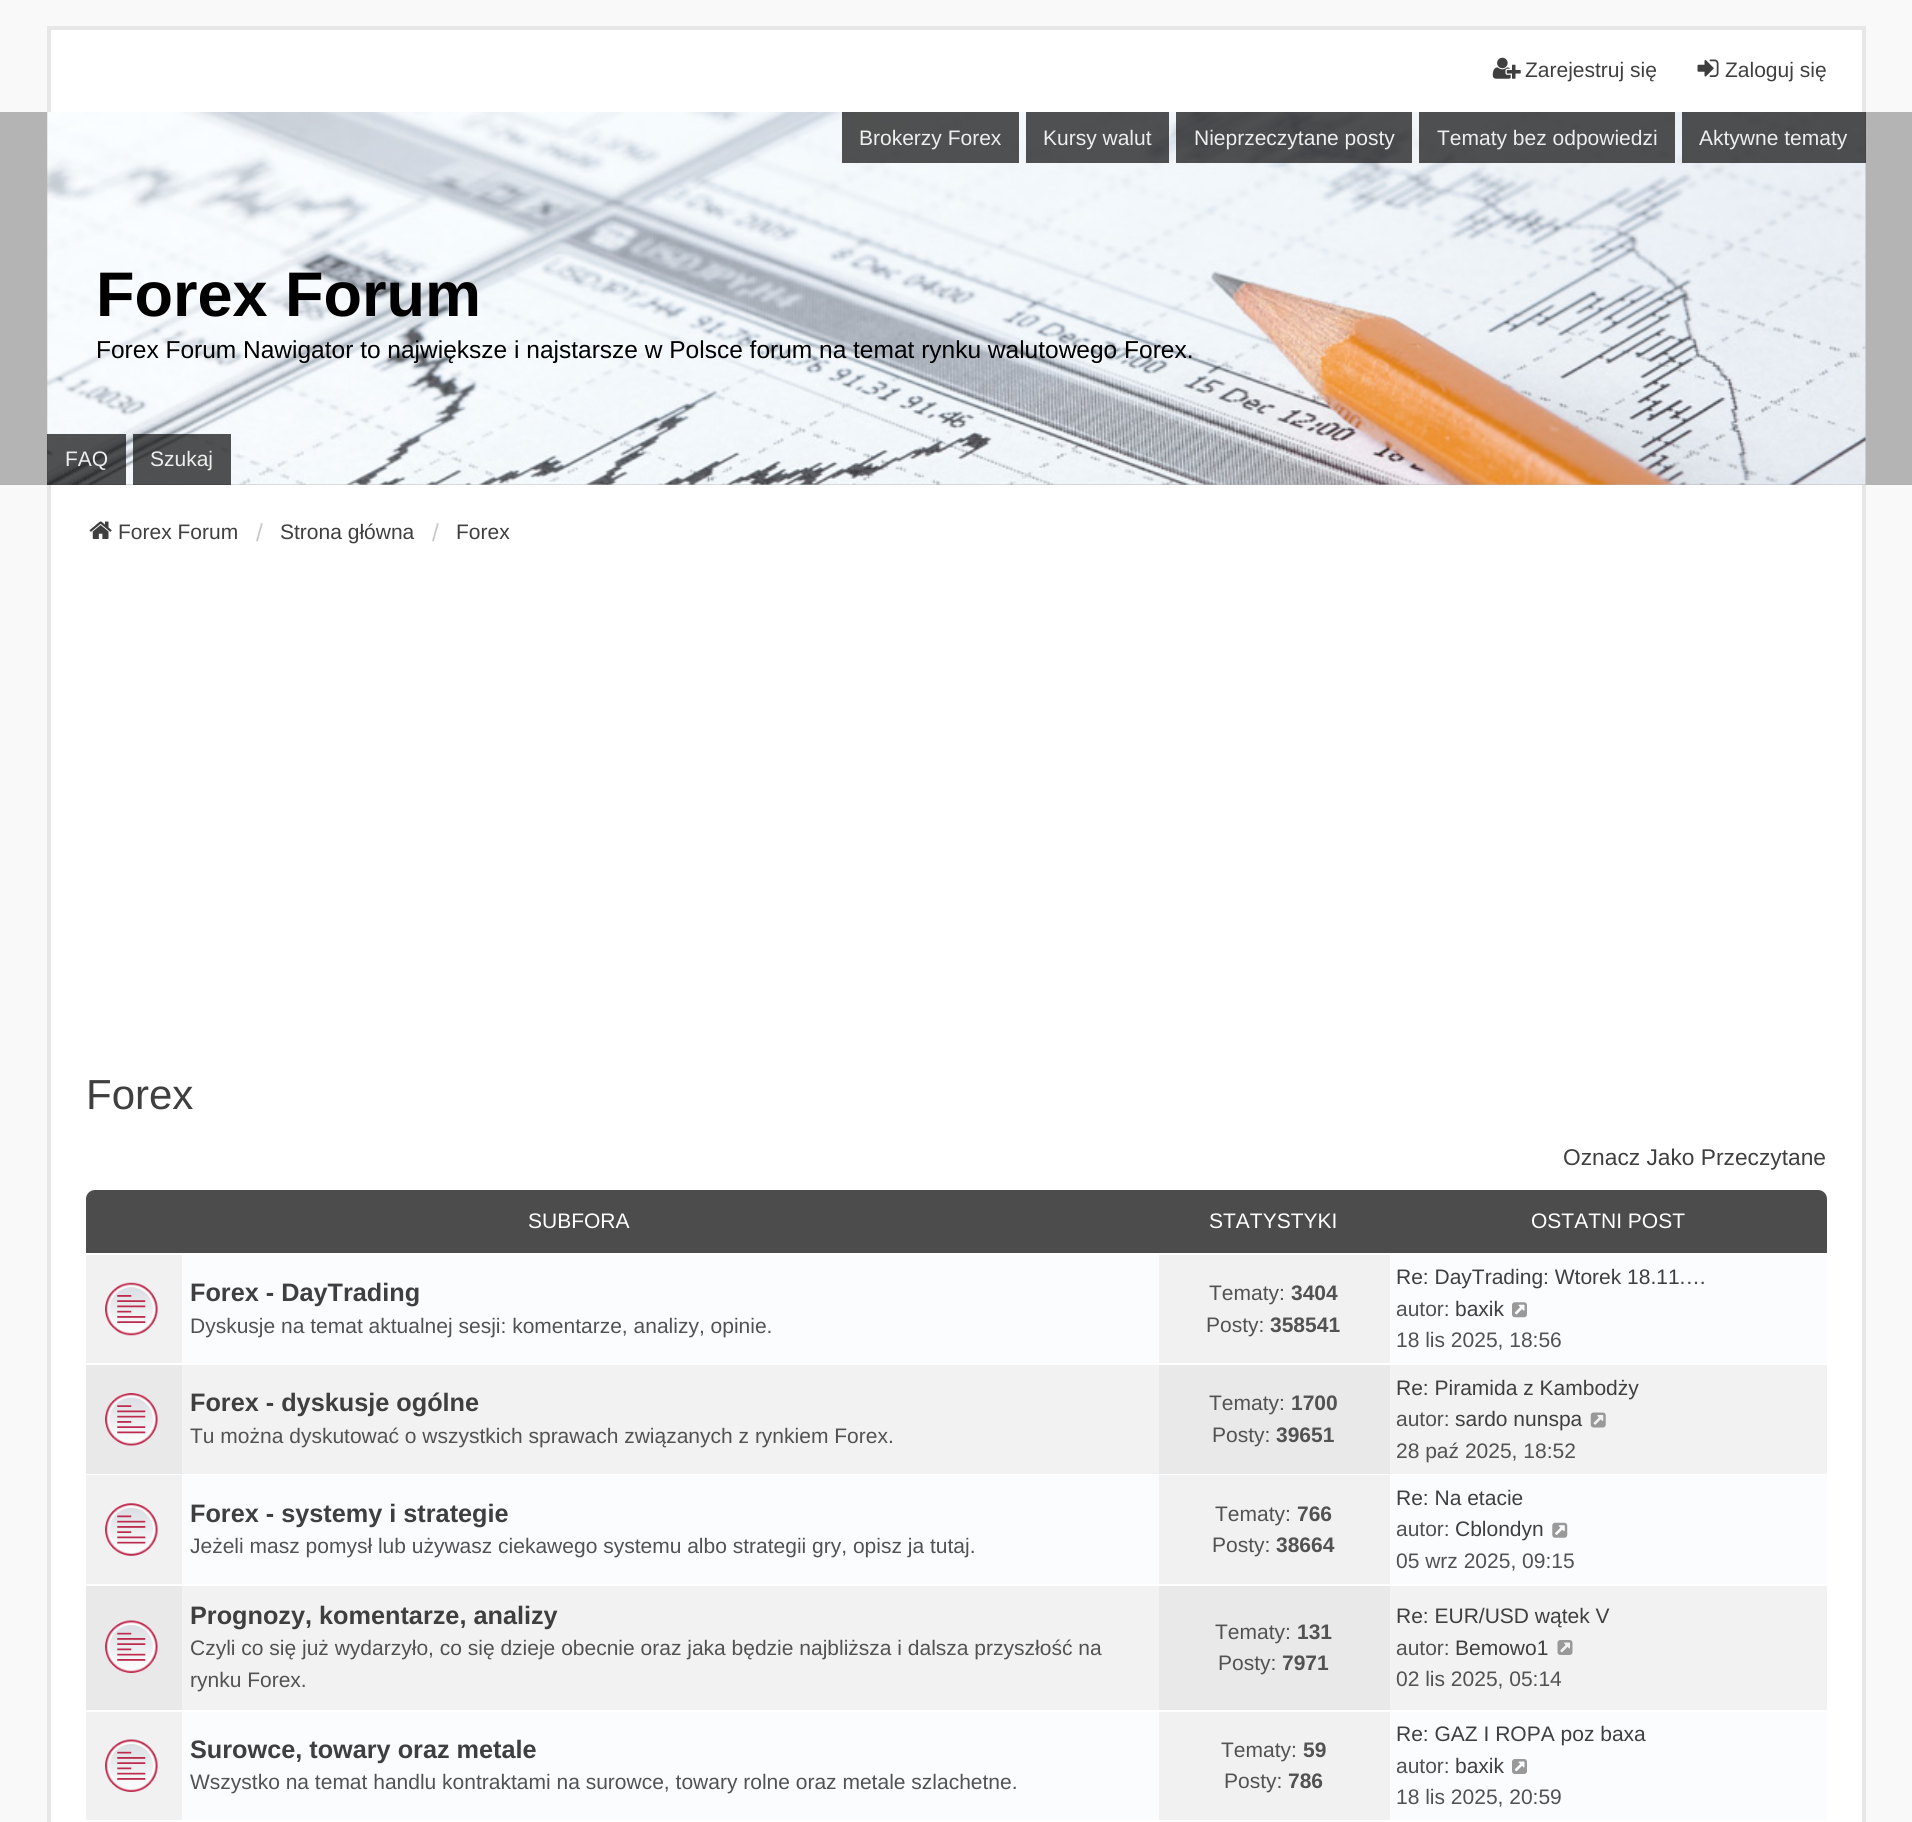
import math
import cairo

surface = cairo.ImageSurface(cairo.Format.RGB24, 1912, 1822)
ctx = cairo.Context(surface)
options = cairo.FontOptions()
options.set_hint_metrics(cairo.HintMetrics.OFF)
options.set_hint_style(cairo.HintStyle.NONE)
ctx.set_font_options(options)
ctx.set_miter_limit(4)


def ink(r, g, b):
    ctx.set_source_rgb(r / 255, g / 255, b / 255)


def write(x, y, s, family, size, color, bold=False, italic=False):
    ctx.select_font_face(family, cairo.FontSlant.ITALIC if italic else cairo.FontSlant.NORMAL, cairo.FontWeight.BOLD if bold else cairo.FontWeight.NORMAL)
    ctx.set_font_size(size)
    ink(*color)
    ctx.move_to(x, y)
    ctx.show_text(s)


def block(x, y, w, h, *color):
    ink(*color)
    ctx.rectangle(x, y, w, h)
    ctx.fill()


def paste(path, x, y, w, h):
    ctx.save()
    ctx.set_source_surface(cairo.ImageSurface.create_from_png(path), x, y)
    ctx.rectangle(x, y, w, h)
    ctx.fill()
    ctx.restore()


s1 = dict(family="Liberation Sans", size=21, color=(63, 63, 63))
s2 = dict(family="Liberation Sans", size=21, color=(238, 238, 238))
s3 = dict(family="Liberation Sans", size=63, color=(0, 0, 0), bold=True)
s4 = dict(family="Liberation Sans", size=24.5, color=(0, 0, 0))
s5 = dict(family="Liberation Sans", size=24.5, color=(202, 202, 202))
s6 = dict(family="Liberation Sans", size=42, color=(63, 63, 63))
s7 = dict(family="Liberation Sans", size=22.75, color=(63, 63, 63))
s8 = dict(family="Liberation Sans", size=21, color=(255, 255, 255))
s9 = dict(family="Liberation Sans", size=25.25, color=(63, 63, 63), bold=True)
s10 = dict(family="Liberation Sans", size=21, color=(82, 82, 82))
s11 = dict(family="Liberation Sans", size=21, color=(82, 82, 82), bold=True)

ink(249, 249, 249)
ctx.paint()
block(51, 30, 1811, 82, 255, 255, 255)
block(47, 26, 1819, 4, 231, 231, 231)
block(1862, 26, 4, 86, 231, 231, 231)
block(47, 26, 4, 86, 231, 231, 231)
paste("pic1.png", 1492, 57, 29, 22)
write(1525, 77, "Zarejestruj się", **s1)
paste("pic2.png", 1697, 59, 22, 18)
write(1725, 77, "Zaloguj się", **s1)
block(0, 112, 1912, 373, 180, 180, 180)
paste("pic3.png", 47, 112, 1819, 373)
ctx.set_source_rgba(0.039, 0.039, 0.039, 0.7)
ctx.rectangle(842, 112, 177, 51)
ctx.fill()
write(859, 145, "Brokerzy Forex", **s2)
ctx.set_source_rgba(0.039, 0.039, 0.039, 0.7)
ctx.rectangle(1026, 112, 143, 51)
ctx.fill()
write(1043, 145, "Kursy walut", **s2)
ctx.set_source_rgba(0.039, 0.039, 0.039, 0.7)
ctx.rectangle(1176, 112, 236, 51)
ctx.fill()
write(1194, 145, "Nieprzeczytane posty", **s2)
ctx.set_source_rgba(0.039, 0.039, 0.039, 0.7)
ctx.rectangle(1419, 112, 256, 51)
ctx.fill()
write(1437, 145, "Tematy bez odpowiedzi", **s2)
ctx.set_source_rgba(0.039, 0.039, 0.039, 0.7)
ctx.rectangle(1682, 112, 184, 51)
ctx.fill()
write(1699, 145, "Aktywne tematy", **s2)
write(96, 316, "Forex Forum", **s3)
write(96, 358, "Forex Forum Nawigator to największe i najstarsze w Polsce forum na temat rynku walutowego Forex.", **s4)
ctx.set_source_rgba(0.039, 0.039, 0.039, 0.7)
ctx.rectangle(47, 434, 79, 51)
ctx.fill()
write(65, 466, "FAQ", **s2)
ctx.set_source_rgba(0.039, 0.039, 0.039, 0.7)
ctx.rectangle(133, 434, 98, 51)
ctx.fill()
write(150, 466, "Szukaj", **s2)
block(51, 485, 1811, 1337, 255, 255, 255)
block(1862, 485, 4, 1337, 231, 231, 231)
block(47, 485, 4, 1337, 231, 231, 231)
paste("pic4.png", 89, 521, 23, 18)
write(118, 539, "Forex Forum", **s1)
write(256, 541, "/", **s5)
write(280, 539, "Strona główna", **s1)
write(432, 541, "/", **s5)
write(456, 539, "Forex", **s1)
write(86, 1109, "Forex", **s6)
write(1563, 1165, "Oznacz Jako Przeczytane", **s7)
ink(76, 76, 76)
ctx.new_path()
ctx.move_to(95, 1190)
ctx.line_to(1818, 1190)
ctx.curve_to(1823, 1190, 1827, 1194, 1827, 1199)
ctx.line_to(1827, 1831)
ctx.line_to(86, 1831)
ctx.line_to(86, 1199)
ctx.curve_to(86, 1194, 90, 1190, 95, 1190)
ctx.close_path()
ctx.fill()
write(528, 1228, "SUBFORA", **s8)
write(1209, 1228, "STATYSTYKI", **s8)
write(1531, 1228, "OSTATNI POST", **s8)
block(182, 1255, 1645, 565, 250, 252, 254)
block(86, 1253, 1741, 2, 255, 255, 255)
block(86, 1255, 96, 108, 241, 241, 241)
paste("pic5.png", 105, 1282, 53, 54)
write(190, 1301, "Forex - DayTrading", **s9)
write(190, 1333, "Dyskusje na temat aktualnej sesji: komentarze, analizy, opinie.", **s10)
block(1159, 1255, 231, 108, 241, 241, 241)
write(1209, 1300, "Tematy:", **s10)
write(1291, 1300, "3404", **s11)
write(1206, 1332, "Posty:", **s10)
write(1270, 1332, "358541", **s11)
write(1396, 1284, "Re: DayTrading: Wtorek 18.11.…", **s1)
write(1396, 1316, "autor:", **s10)
write(1455, 1316, "baxik", **s1)
paste("pic6.png", 1512, 1302, 15, 16)
write(1396, 1347, "18 lis 2025, 18:56", **s10)
block(182, 1365, 1645, 109, 242, 242, 242)
block(86, 1363, 1741, 2, 255, 255, 255)
block(86, 1365, 96, 109, 233, 233, 233)
paste("pic7.png", 105, 1393, 53, 53)
write(190, 1411, "Forex - dyskusje ogólne", **s9)
write(190, 1443, "Tu można dyskutować o wszystkich sprawach związanych z rynkiem Forex.", **s10)
block(1159, 1365, 231, 109, 233, 233, 233)
write(1209, 1410, "Tematy:", **s10)
write(1291, 1410, "1700", **s11)
write(1212, 1442, "Posty:", **s10)
write(1276, 1442, "39651", **s11)
write(1396, 1395, "Re: Piramida z Kambodży", **s1)
write(1396, 1426, "autor:", **s10)
write(1455, 1426, "sardo nunspa", **s1)
paste("pic8.png", 1590, 1412, 16, 16)
write(1396, 1458, "28 paź 2025, 18:52", **s10)
block(86, 1474, 1741, 1, 255, 255, 255)
block(86, 1475, 96, 109, 241, 241, 241)
paste("pic9.png", 105, 1503, 53, 53)
write(190, 1522, "Forex - systemy i strategie", **s9)
write(190, 1553, "Jeżeli masz pomysł lub używasz ciekawego systemu albo strategii gry, opisz ja tutaj.", **s10)
block(1159, 1475, 231, 109, 241, 241, 241)
write(1215, 1521, "Tematy:", **s10)
write(1297, 1521, "766", **s11)
write(1212, 1552, "Posty:", **s10)
write(1276, 1552, "38664", **s11)
write(1396, 1505, "Re: Na etacie", **s1)
write(1396, 1536, "autor:", **s10)
write(1455, 1536, "Cblondyn", **s1)
paste("pic10.png", 1552, 1522, 16, 16)
write(1396, 1568, "05 wrz 2025, 09:15", **s10)
block(182, 1586, 1645, 124, 242, 242, 242)
block(86, 1584, 1741, 2, 255, 255, 255)
block(86, 1586, 96, 124, 233, 233, 233)
paste("pic11.png", 105, 1620, 53, 53)
write(190, 1624, "Prognozy, komentarze, analizy", **s9)
write(190, 1655, "Czyli co się już wydarzyło, co się dzieje obecnie oraz jaka będzie najbliższa i dalsza przyszłość na", **s10)
write(190, 1687, "rynku Forex.", **s10)
block(1159, 1586, 231, 124, 233, 233, 233)
write(1215, 1639, "Tematy:", **s10)
write(1297, 1639, "131", **s11)
write(1218, 1670, "Posty:", **s10)
write(1282, 1670, "7971", **s11)
write(1396, 1623, "Re: EUR/USD wątek V", **s1)
write(1396, 1655, "autor:", **s10)
write(1455, 1655, "Bemowo1", **s1)
paste("pic12.png", 1557, 1640, 16, 15)
write(1396, 1686, "02 lis 2025, 05:14", **s10)
block(86, 1710, 1741, 2, 255, 255, 255)
block(86, 1712, 96, 108, 241, 241, 241)
paste("pic13.png", 105, 1739, 53, 53)
write(190, 1758, "Surowce, towary oraz metale", **s9)
write(190, 1789, "Wszystko na temat handlu kontraktami na surowce, towary rolne oraz metale szlachetne.", **s10)
block(1159, 1712, 231, 108, 241, 241, 241)
write(1221, 1757, "Tematy:", **s10)
write(1303, 1757, "59", **s11)
write(1224, 1788, "Posty:", **s10)
write(1288, 1788, "786", **s11)
write(1396, 1741, "Re: GAZ I ROPA poz baxa", **s1)
write(1396, 1773, "autor:", **s10)
write(1455, 1773, "baxik", **s1)
paste("pic14.png", 1512, 1759, 15, 15)
write(1396, 1804, "18 lis 2025, 20:59", **s10)
block(86, 1820, 1741, 2, 255, 255, 255)
surface.write_to_png("screenshot.png")
